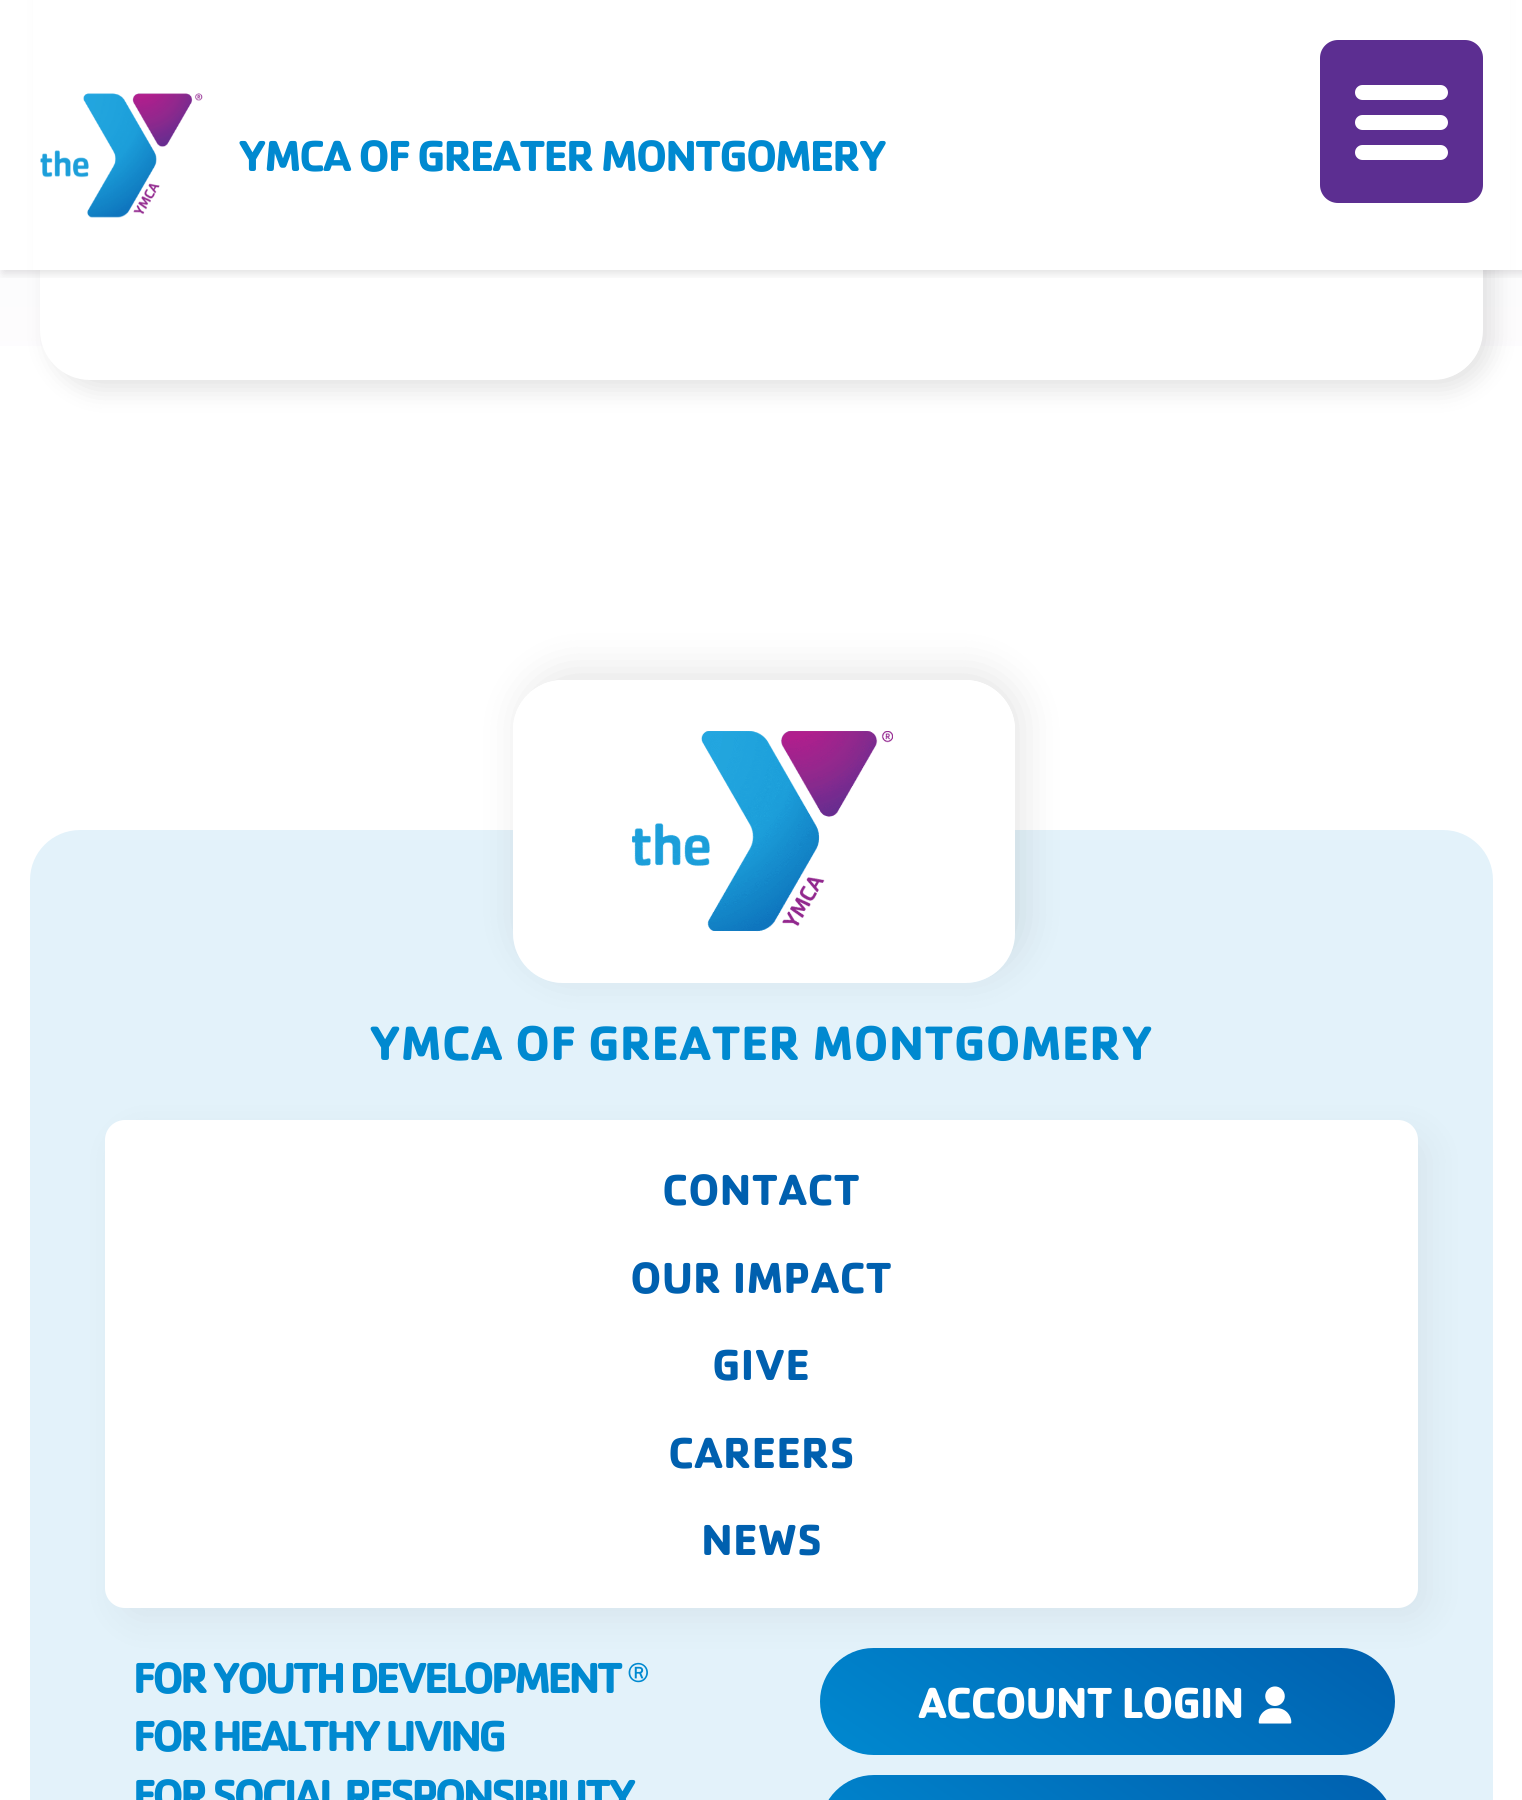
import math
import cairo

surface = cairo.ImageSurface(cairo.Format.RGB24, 1522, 1800)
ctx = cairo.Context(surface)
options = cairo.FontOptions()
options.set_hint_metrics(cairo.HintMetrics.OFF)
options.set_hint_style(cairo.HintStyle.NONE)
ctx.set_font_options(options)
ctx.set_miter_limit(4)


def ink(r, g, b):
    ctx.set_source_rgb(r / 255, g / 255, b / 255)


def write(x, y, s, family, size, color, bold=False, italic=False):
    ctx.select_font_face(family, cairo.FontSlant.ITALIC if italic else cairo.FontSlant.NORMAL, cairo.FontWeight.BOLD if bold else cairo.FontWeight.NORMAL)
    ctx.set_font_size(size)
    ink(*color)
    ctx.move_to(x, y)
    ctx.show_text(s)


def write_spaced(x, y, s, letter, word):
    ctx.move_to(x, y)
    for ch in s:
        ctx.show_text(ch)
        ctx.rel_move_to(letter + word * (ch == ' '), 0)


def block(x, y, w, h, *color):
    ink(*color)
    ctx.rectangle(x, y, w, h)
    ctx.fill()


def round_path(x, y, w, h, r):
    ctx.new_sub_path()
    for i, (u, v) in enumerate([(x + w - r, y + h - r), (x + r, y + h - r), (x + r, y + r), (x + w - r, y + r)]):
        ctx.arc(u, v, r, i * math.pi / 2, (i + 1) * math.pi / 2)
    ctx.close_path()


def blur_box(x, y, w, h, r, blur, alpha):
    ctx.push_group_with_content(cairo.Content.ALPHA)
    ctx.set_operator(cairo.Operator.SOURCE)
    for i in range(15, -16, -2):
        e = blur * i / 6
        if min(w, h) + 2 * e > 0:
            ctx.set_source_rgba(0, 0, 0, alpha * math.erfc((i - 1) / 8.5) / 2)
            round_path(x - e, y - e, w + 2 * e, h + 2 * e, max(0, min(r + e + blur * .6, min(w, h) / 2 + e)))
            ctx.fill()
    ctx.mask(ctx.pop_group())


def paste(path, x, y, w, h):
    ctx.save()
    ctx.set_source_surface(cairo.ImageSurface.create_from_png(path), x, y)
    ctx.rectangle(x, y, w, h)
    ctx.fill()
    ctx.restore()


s1 = dict(family="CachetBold", size=50, color=(0, 137, 208), bold=True)
s2 = dict(family="CachetBold", size=45, color=(0, 96, 175), bold=True)

ink(255, 255, 255)
ctx.paint()
gradient = cairo.LinearGradient(761, 530, 761, -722)
gradient.add_color_stop_rgba(0, 1, 1, 1, 1)
gradient.add_color_stop_rgba(1, 0.945, 0.933, 0.961, 1)
ctx.set_source(gradient)
ctx.rectangle(0, 270, 1522, 76)
ctx.fill()
ink(0, 0, 0)
blur_box(50, -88, 1443, 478, 50, 12.5, 0.11)
ink(255, 255, 255)
round_path(40, -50, 1443, 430, 50)
ctx.fill()
block(33, 0, 1477, 270, 255, 255, 255)
ctx.save()
ctx.rectangle(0, 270, 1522, 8)
ctx.clip()
ink(0, 0, 0)
blur_box(3, 3, 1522, 270, 0, 5, 0.13)
ctx.restore()
paste("pic1.png", 40, 93, 163, 125)
ctx.select_font_face("CachetBold", cairo.FontSlant.NORMAL, cairo.FontWeight.BOLD)
ctx.set_font_size(45)
ink(0, 137, 208)
write_spaced(238, 171, "YMCA OF GREATER MONTGOMERY", -2.25, 0)
ink(92, 46, 145)
round_path(1320, 40, 163, 163, 18)
ctx.fill()
ink(255, 255, 255)
round_path(1355, 115, 93, 15, 7.5)
ctx.fill()
round_path(1355, 85, 93, 15, 7.5)
ctx.fill()
round_path(1355, 145, 93, 15, 7.5)
ctx.fill()
ink(227, 242, 250)
round_path(30, 830, 1463, 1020, 50)
ctx.fill()
ctx.save()
ctx.set_fill_rule(cairo.FillRule.EVEN_ODD)
ctx.new_path()
ctx.move_to(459, 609)
ctx.line_to(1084, 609)
ctx.line_to(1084, 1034)
ctx.line_to(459, 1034)
ctx.close_path()
ctx.move_to(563, 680)
ctx.line_to(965, 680)
ctx.curve_to(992.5, 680, 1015, 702.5, 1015, 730)
ctx.line_to(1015, 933)
ctx.curve_to(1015, 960.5, 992.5, 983, 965, 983)
ctx.line_to(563, 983)
ctx.curve_to(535.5, 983, 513, 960.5, 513, 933)
ctx.line_to(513, 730)
ctx.curve_to(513, 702.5, 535.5, 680, 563, 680)
ctx.close_path()
ctx.clip()
ink(0, 0, 0)
blur_box(520, 670, 503, 303, 50, 20, 0.1)
ctx.restore()
ink(255, 255, 255)
round_path(513, 680, 502, 303, 50)
ctx.fill()
paste("pic2.png", 632, 731, 261, 201)
write(369, 1060, "YMCA OF GREATER MONTGOMERY", **s1)
ink(0, 0, 0)
blur_box(118, 1133, 1312, 487, 20, 19, 0.05)
ink(255, 255, 255)
round_path(105, 1120, 1313, 488, 20)
ctx.fill()
write(662, 1205, "CONTACT", **s2)
write(630, 1293, "OUR IMPACT", **s2)
write(712, 1380, "GIVE", **s2)
write(668, 1468, "CAREERS", **s2)
write(701, 1555, "NEWS", **s2)
ink(0, 137, 208)
write_spaced(133, 1693, "FOR YOUTH DEVELOPMENT", -3.75, 0)
ctx.select_font_face("WenQuanYi Zen Hei", cairo.FontSlant.NORMAL, cairo.FontWeight.BOLD)
ctx.set_font_size(20)
write_spaced(628, 1680, "Ⓡ", -3.75, 0)
ctx.select_font_face("CachetBold", cairo.FontSlant.NORMAL, cairo.FontWeight.BOLD)
ctx.set_font_size(45)
write_spaced(133, 1751, "FOR HEALTHY LIVING", -3.75, 0)
write_spaced(133, 1810, "FOR SOCIAL RESPONSIBILITY", -3.75, 0)
gradient = cairo.LinearGradient(1222, 1531, 993, 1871)
gradient.add_color_stop_rgba(0, 0, 0.376, 0.686, 1)
gradient.add_color_stop_rgba(1, 0, 0.537, 0.816, 1)
ctx.set_source(gradient)
round_path(820, 1648, 575, 107, 53.5)
ctx.fill()
ink(255, 255, 255)
write_spaced(918, 1718, "ACCOUNT LOGIN", -1.25, 0)
paste("pic3.png", 1258, 1686, 34, 38)
gradient = cairo.LinearGradient(1222, 1659, 993, 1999)
gradient.add_color_stop_rgba(0, 0, 0.376, 0.686, 1)
gradient.add_color_stop_rgba(1, 0, 0.537, 0.816, 1)
ctx.set_source(gradient)
round_path(820, 1775, 575, 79, 54)
ctx.fill()
surface.write_to_png("screenshot.png")
